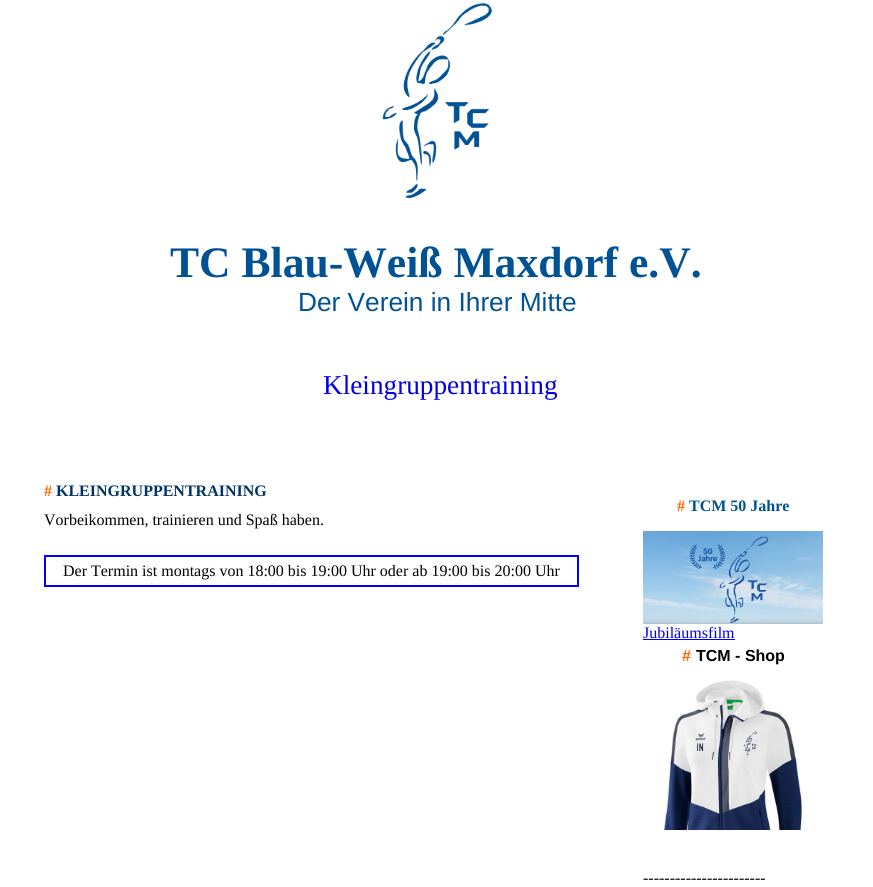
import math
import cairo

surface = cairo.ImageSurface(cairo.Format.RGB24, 873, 887)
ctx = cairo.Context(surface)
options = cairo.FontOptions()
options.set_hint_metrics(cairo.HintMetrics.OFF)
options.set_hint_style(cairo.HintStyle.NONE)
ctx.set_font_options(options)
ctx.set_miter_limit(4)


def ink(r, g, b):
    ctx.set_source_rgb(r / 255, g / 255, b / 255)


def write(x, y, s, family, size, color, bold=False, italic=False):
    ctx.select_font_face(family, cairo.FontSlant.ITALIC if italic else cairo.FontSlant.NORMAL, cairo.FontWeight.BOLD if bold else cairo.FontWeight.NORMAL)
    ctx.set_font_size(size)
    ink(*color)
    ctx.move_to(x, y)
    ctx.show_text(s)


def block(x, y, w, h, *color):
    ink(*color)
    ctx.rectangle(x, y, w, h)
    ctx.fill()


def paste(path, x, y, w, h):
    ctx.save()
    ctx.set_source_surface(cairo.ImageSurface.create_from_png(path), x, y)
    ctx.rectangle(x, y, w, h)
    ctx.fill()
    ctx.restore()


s1 = dict(family="Liberation Serif", size=43.6, color=(0, 82, 148), bold=True)
s2 = dict(family="Liberation Sans", size=26.25, color=(0, 82, 148))
s3 = dict(family="Liberation Serif", size=27.25, color=(0, 0, 238))
s4 = dict(family="Liberation Serif", size=16, color=(255, 102, 0), bold=True)
s5 = dict(family="Liberation Serif", size=16, color=(0, 51, 102), bold=True)
s6 = dict(family="Liberation Serif", size=16, color=(0, 0, 0))
s7 = dict(family="Liberation Serif", size=16, color=(0, 82, 148), bold=True)
s8 = dict(family="Liberation Serif", size=16, color=(0, 0, 238))
s9 = dict(family="Liberation Sans", size=16, color=(255, 102, 0), bold=True)
s10 = dict(family="Liberation Sans", size=16, color=(0, 0, 0), bold=True)

ink(255, 255, 255)
ctx.paint()
paste("pic1.png", 382, 3, 111, 196)
write(170, 277, "TC Blau-Weiß Maxdorf e.V.", **s1)
write(298, 311, "Der Verein in Ihrer Mitte", **s2)
write(323, 394, "Kleingruppentraining", **s3)
write(44, 496, "#", **s4)
write(56, 496, "KLEINGRUPPENTRAINING", **s5)
write(44, 525, "Vorbeikommen, trainieren und Spaß haben.", **s6)
ctx.rectangle(45, 556, 533, 30)
ink(0, 0, 255)
ctx.stroke()
write(63, 576, "Der Termin ist montags von 18:00 bis 19:00 Uhr oder ab 19:00 bis 20:00 Uhr", **s6)
write(677, 511, "#", **s4)
write(689, 511, "TCM 50 Jahre", **s7)
paste("pic2.png", 643, 531, 180, 93)
write(643, 638, "Jubiläumsfilm", **s8)
block(643, 639, 92, 1, 0, 0, 238)
write(682, 661, "#", **s9)
write(696, 661, "TCM - Shop", **s10)
paste("pic3.png", 663, 680, 140, 150)
write(643, 883, "-----------------------", **s6)
surface.write_to_png("screenshot.png")
